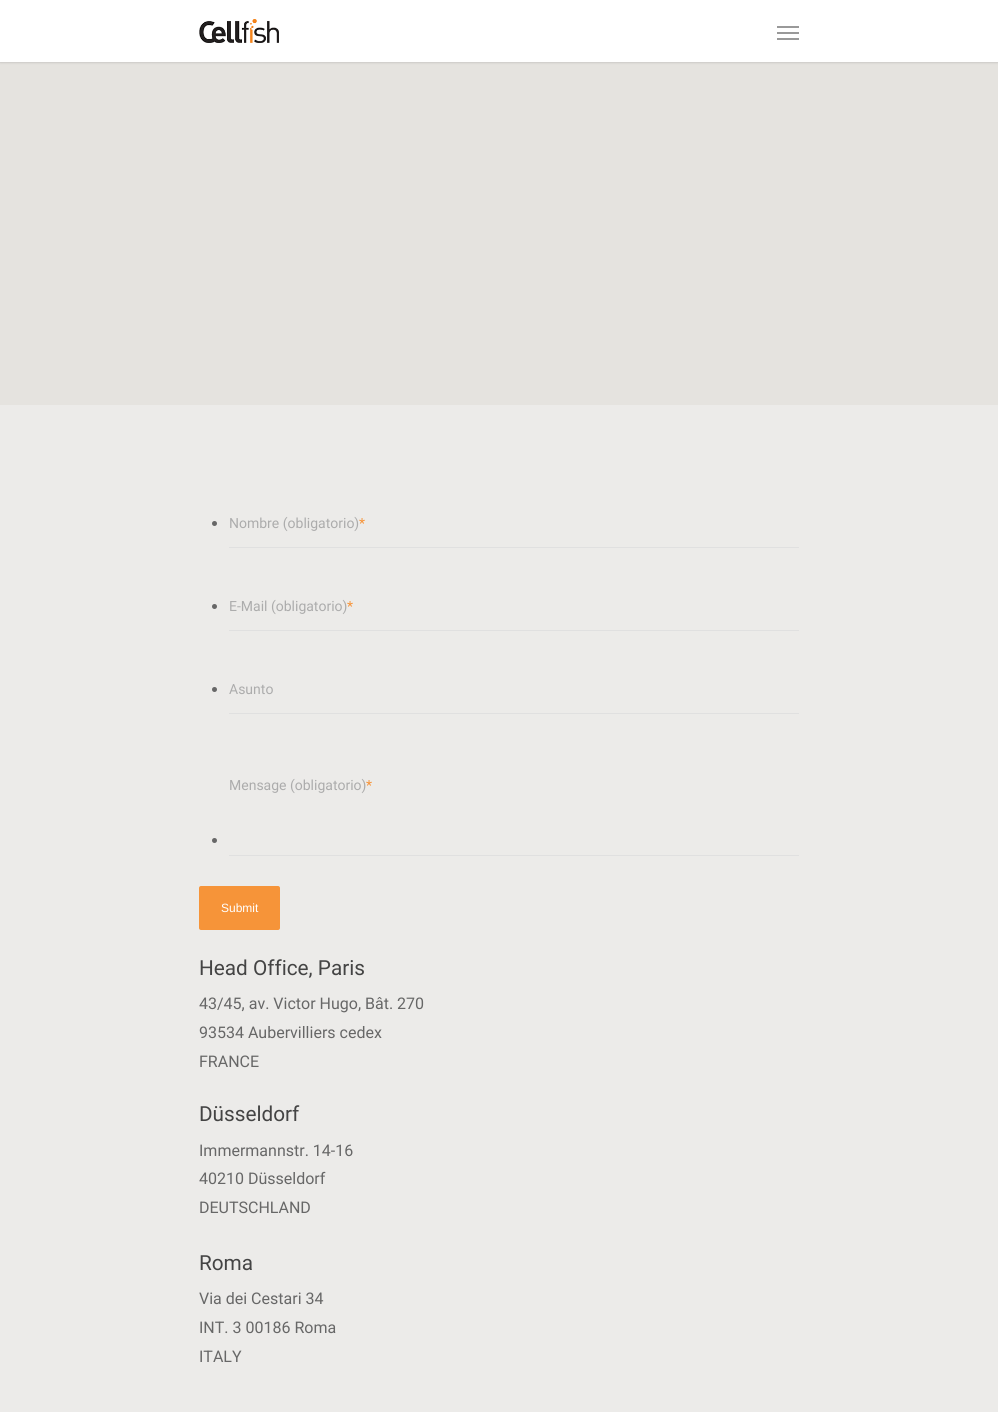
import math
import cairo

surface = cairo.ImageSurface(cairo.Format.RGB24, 998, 1412)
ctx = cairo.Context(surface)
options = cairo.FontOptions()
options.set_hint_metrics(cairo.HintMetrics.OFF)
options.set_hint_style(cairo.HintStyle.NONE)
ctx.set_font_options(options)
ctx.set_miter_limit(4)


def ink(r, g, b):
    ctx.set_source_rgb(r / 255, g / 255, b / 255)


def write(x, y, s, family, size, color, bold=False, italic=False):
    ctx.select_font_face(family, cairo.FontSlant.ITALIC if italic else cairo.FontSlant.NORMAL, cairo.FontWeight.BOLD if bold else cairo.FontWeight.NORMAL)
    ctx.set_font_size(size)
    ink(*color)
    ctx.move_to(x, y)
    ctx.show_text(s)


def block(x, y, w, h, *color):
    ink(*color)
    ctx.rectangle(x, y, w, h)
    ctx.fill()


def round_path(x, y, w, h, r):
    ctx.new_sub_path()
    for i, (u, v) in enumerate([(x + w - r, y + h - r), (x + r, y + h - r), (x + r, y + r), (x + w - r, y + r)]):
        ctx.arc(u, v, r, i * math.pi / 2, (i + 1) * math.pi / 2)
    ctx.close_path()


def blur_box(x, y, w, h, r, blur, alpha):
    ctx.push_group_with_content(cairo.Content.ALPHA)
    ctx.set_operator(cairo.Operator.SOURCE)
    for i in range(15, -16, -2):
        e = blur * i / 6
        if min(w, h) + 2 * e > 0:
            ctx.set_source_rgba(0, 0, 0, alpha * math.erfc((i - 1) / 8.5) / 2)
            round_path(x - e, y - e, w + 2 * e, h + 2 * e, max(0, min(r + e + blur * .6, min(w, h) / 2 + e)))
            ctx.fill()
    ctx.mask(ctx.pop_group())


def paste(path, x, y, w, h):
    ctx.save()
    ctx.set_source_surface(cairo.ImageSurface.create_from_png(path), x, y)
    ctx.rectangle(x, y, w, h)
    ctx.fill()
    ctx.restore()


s1 = dict(family="Roboto", size=14, color=(172, 172, 172))
s2 = dict(family="Roboto", size=14, color=(246, 148, 57))
s3 = dict(family="Liberation Sans", size=12, color=(255, 255, 255))
s4 = dict(family="Roboto", size=20.75, color=(68, 68, 68))
s5 = dict(family="Roboto", size=16, color=(103, 103, 103))

ink(229, 227, 223)
ctx.paint()
ink(0, 0, 0)
blur_box(0, 0, 998, 62, 0, 1.5, 0.22)
block(0, 0, 998, 62, 255, 255, 255)
paste("pic1.png", 199, 19, 80, 24)
block(777, 26, 22, 2, 153, 153, 153)
block(777, 38, 22, 2, 153, 153, 153)
block(777, 32, 22, 2, 153, 153, 153)
block(0, 405, 998, 1007, 236, 235, 233)
ink(103, 103, 103)
ctx.arc(214.5, 523.5, 2.5, 0, 2 * math.pi)
ctx.fill()
write(229, 528, "Nombre (obligatorio)", **s1)
write(359, 528, "*", **s2)
block(229, 547, 570, 1, 224, 224, 224)
ink(103, 103, 103)
ctx.new_path()
ctx.arc(214.5, 606.5, 2.5, 0, 2 * math.pi)
ctx.fill()
write(229, 611, "E-Mail (obligatorio)", **s1)
write(347, 611, "*", **s2)
block(229, 630, 570, 1, 224, 224, 224)
ink(103, 103, 103)
ctx.new_path()
ctx.arc(214.5, 689.5, 2.5, 0, 2 * math.pi)
ctx.fill()
write(229, 694, "Asunto", **s1)
block(229, 713, 570, 1, 224, 224, 224)
write(229, 790, "Mensage (obligatorio)", **s1)
write(366, 790, "*", **s2)
block(229, 855, 570, 1, 224, 224, 224)
ink(103, 103, 103)
ctx.new_path()
ctx.arc(214.5, 840.5, 2.5, 0, 2 * math.pi)
ctx.fill()
ink(246, 148, 57)
round_path(199, 886, 81, 44, 2)
ctx.fill()
write(221, 912, "Submit", **s3)
write(199, 975, "Head Office, Paris", **s4)
write(199, 1009, "43/45, av. Victor Hugo, Bât. 270", **s5)
write(199, 1038, "93534 Aubervilliers cedex", **s5)
write(199, 1067, "FRANCE", **s5)
write(199, 1121, "Düsseldorf", **s4)
write(199, 1156, "Immermannstr. 14-16", **s5)
write(199, 1184, "40210 Düsseldorf", **s5)
write(199, 1213, "DEUTSCHLAND", **s5)
write(199, 1270, "Roma", **s4)
write(199, 1304, "Via dei Cestari 34", **s5)
write(199, 1333, "INT. 3 00186 Roma", **s5)
write(199, 1362, "ITALY", **s5)
surface.write_to_png("screenshot.png")
